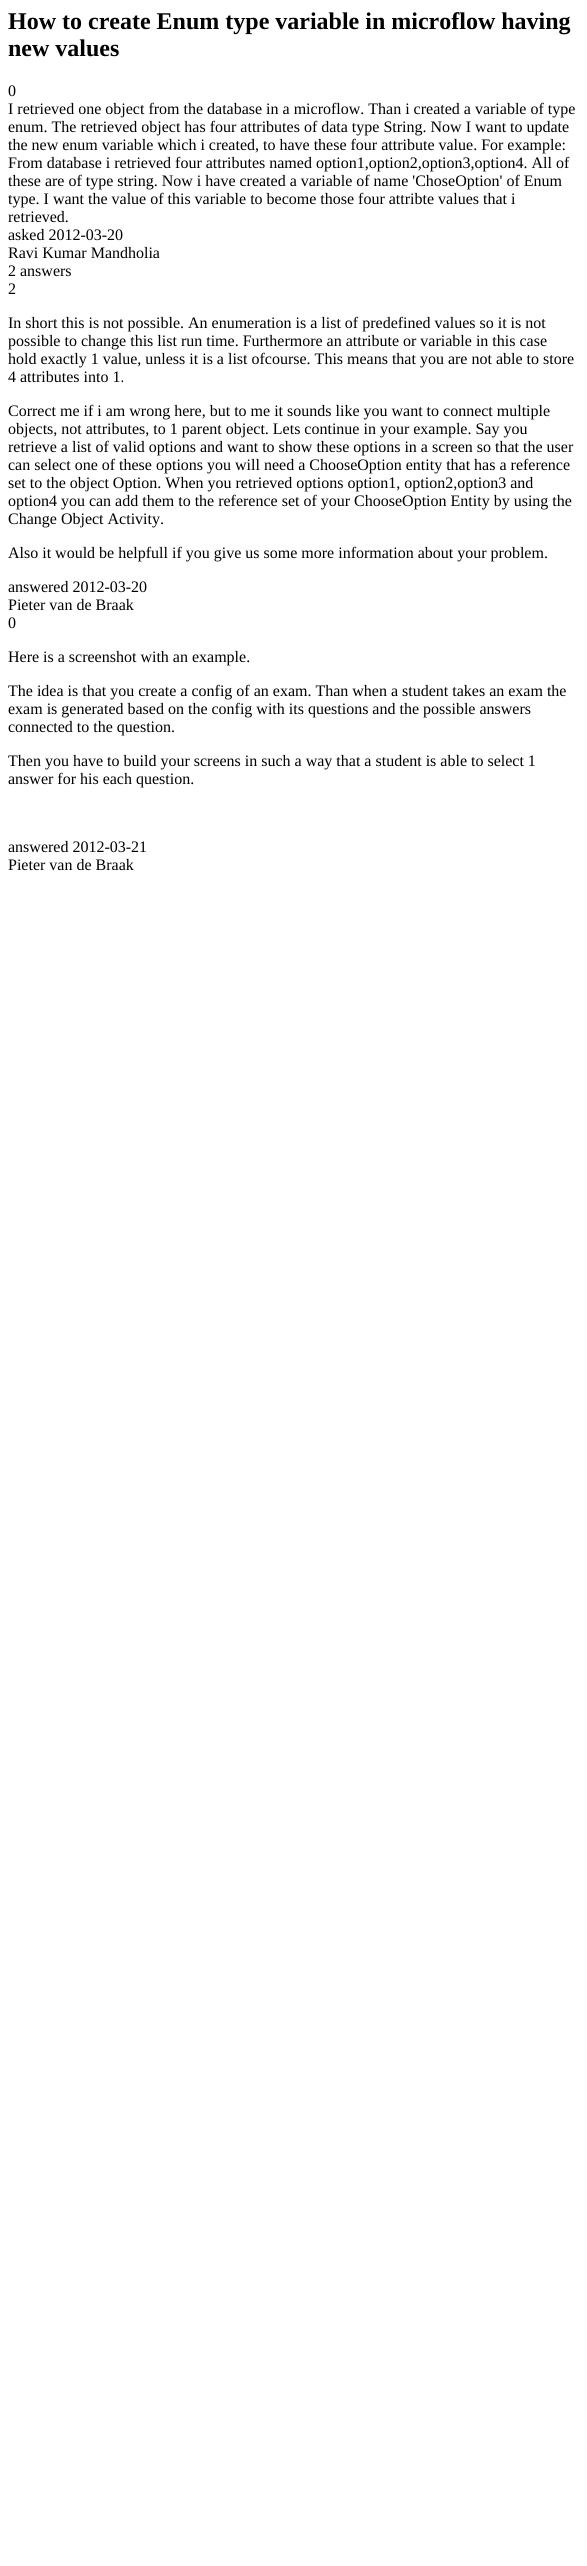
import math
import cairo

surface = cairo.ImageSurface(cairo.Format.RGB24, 587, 2566)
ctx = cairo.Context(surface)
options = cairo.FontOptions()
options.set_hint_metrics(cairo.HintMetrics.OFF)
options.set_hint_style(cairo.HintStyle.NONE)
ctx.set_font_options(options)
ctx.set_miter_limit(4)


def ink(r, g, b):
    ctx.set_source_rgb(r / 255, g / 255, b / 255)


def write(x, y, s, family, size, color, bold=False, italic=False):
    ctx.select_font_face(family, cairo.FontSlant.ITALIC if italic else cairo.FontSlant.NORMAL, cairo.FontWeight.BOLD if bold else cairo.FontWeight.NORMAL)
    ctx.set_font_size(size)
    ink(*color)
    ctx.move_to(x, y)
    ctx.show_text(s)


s1 = dict(family="Liberation Serif", size=24, color=(0, 0, 0), bold=True)
s2 = dict(family="Liberation Serif", size=16, color=(0, 0, 0))

ink(255, 255, 255)
ctx.paint()
write(8, 29, "How to create Enum type variable in microflow having", **s1)
write(8, 56, "new values", **s1)
write(8, 96, "0", **s2)
write(8, 114, "I retrieved one object from the database in a microflow. Than i created a variable of type", **s2)
write(8, 132, "enum. The retrieved object has four attributes of data type String. Now I want to update", **s2)
write(8, 150, "the new enum variable which i created, to have these four attribute value. For example:", **s2)
write(8, 168, "From database i retrieved four attributes named option1,option2,option3,option4. All of", **s2)
write(8, 186, "these are of type string. Now i have created a variable of name 'ChoseOption' of Enum", **s2)
write(8, 204, "type. I want the value of this variable to become those four attribte values that i", **s2)
write(8, 222, "retrieved.", **s2)
write(8, 240, "asked 2012-03-20", **s2)
write(8, 258, "Ravi Kumar Mandholia", **s2)
write(8, 276, "2 answers", **s2)
write(8, 294, "2", **s2)
write(8, 328, "In short this is not possible. An enumeration is a list of predefined values so it is not", **s2)
write(8, 346, "possible to change this list run time. Furthermore an attribute or variable in this case", **s2)
write(8, 364, "hold exactly 1 value, unless it is a list ofcourse. This means that you are not able to store", **s2)
write(8, 382, "4 attributes into 1.", **s2)
write(8, 416, "Correct me if i am wrong here, but to me it sounds like you want to connect multiple", **s2)
write(8, 434, "objects, not attributes, to 1 parent object. Lets continue in your example. Say you", **s2)
write(8, 452, "retrieve a list of valid options and want to show these options in a screen so that the user", **s2)
write(8, 470, "can select one of these options you will need a ChooseOption entity that has a reference", **s2)
write(8, 488, "set to the object Option. When you retrieved options option1, option2,option3 and", **s2)
write(8, 506, "option4 you can add them to the reference set of your ChooseOption Entity by using the", **s2)
write(8, 524, "Change Object Activity.", **s2)
write(8, 558, "Also it would be helpfull if you give us some more information about your problem.", **s2)
write(8, 592, "answered 2012-03-20", **s2)
write(8, 610, "Pieter van de Braak", **s2)
write(8, 628, "0", **s2)
write(8, 662, "Here is a screenshot with an example.", **s2)
write(8, 696, "The idea is that you create a config of an exam. Than when a student takes an exam the", **s2)
write(8, 714, "exam is generated based on the config with its questions and the possible answers", **s2)
write(8, 732, "connected to the question.", **s2)
write(8, 766, "Then you have to build your screens in such a way that a student is able to select 1", **s2)
write(8, 784, "answer for his each question.", **s2)
write(8, 852, "answered 2012-03-21", **s2)
write(8, 870, "Pieter van de Braak", **s2)
surface.write_to_png("screenshot.png")
